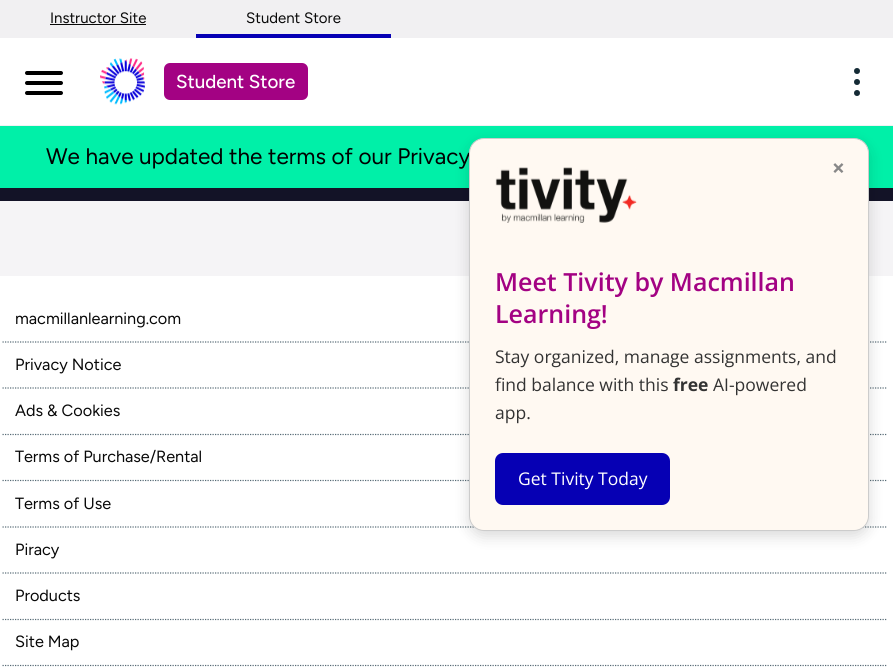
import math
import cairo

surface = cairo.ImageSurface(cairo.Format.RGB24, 893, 668)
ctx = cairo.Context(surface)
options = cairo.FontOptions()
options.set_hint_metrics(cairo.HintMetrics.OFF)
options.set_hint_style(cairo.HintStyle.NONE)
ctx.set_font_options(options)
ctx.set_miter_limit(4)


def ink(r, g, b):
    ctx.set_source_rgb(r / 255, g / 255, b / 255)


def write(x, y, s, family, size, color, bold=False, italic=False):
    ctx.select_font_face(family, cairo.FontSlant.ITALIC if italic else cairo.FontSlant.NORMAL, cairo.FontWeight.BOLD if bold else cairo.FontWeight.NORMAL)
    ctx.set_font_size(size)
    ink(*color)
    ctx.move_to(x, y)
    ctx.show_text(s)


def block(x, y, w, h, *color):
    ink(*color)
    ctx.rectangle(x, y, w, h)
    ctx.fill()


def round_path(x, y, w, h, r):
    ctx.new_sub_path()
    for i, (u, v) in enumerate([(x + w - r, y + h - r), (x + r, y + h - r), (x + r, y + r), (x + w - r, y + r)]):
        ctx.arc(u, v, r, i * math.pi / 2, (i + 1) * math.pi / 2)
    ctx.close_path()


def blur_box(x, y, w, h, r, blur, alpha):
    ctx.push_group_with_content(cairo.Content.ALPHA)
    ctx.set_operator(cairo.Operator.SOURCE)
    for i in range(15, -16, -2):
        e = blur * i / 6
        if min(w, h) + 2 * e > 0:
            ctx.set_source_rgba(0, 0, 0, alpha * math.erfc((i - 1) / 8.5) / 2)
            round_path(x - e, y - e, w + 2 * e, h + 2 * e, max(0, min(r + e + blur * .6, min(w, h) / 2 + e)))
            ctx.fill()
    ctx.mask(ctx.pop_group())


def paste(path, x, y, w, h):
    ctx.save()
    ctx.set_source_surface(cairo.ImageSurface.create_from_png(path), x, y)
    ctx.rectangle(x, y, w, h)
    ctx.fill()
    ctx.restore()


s1 = dict(family="Figtree", size=15, color=(8, 8, 8))
s2 = dict(family="Figtree Medium", size=18.75, color=(255, 255, 255))
s3 = dict(family="Figtree", size=16.25, color=(8, 8, 8))
s4 = dict(family="Figtree", size=22.5, color=(0, 0, 0))
s5 = dict(family="Open Sans", size=22.5, color=(136, 136, 136), bold=True)
s6 = dict(family="Open Sans SemiBold", size=25, color=(163, 2, 131))
s7 = dict(family="Open Sans", size=17.5, color=(51, 51, 51))
s8 = dict(family="Open Sans", size=17.5, color=(51, 51, 51), bold=True)
s9 = dict(family="Open Sans", size=17.5, color=(255, 255, 255))

ink(245, 244, 246)
ctx.paint()
block(0, 38, 893, 87, 255, 255, 255)
block(0, 125, 893, 1, 239, 242, 243)
block(0, 0, 893, 38, 241, 240, 242)
write(50, 23, "Instructor Site", **s1)
block(50, 24, 96, 1, 8, 8, 8)
block(196, 34, 195, 4, 6, 0, 180)
write(246, 23, "Student Store", **s1)
ink(0, 0, 0)
round_path(25, 71, 38, 4, 2)
ctx.fill()
round_path(25, 81, 38, 4, 2)
ctx.fill()
round_path(25, 91, 38, 4, 2)
ctx.fill()
paste("pic1.png", 100, 58, 45, 47)
ink(163, 2, 131)
round_path(164, 63, 144, 37, 6)
ctx.fill()
write(176, 88, "Student Store", **s2)
ink(20, 42, 53)
ctx.new_path()
ctx.arc(857, 71, 3, 0, 2 * math.pi)
ctx.fill()
ctx.arc(857, 82, 3, 0, 2 * math.pi)
ctx.fill()
ctx.arc(857, 93, 3, 0, 2 * math.pi)
ctx.fill()
block(0, 188, 893, 13, 19, 19, 39)
block(0, 276, 893, 392, 255, 255, 255)
ctx.new_path()
ctx.move_to(2.5, 342)
ctx.line_to(887.5, 342)
ink(86, 106, 117)
ctx.set_line_width(1.2)
ctx.set_dash([1.25, 1.25])
ctx.stroke()
write(15, 324, "macmillanlearning.com", **s3)
ctx.new_path()
ctx.move_to(2.5, 388)
ctx.line_to(887.5, 388)
ink(86, 106, 117)
ctx.stroke()
write(15, 370, "Privacy Notice", **s3)
ctx.new_path()
ctx.move_to(2.5, 434.5)
ctx.line_to(887.5, 434.5)
ink(86, 106, 117)
ctx.stroke()
write(15, 416, "Ads & Cookies", **s3)
ctx.new_path()
ctx.move_to(2.5, 480.5)
ctx.line_to(887.5, 480.5)
ink(86, 106, 117)
ctx.stroke()
write(15, 462, "Terms of Purchase/Rental", **s3)
ctx.new_path()
ctx.move_to(2.5, 527)
ctx.line_to(887.5, 527)
ink(86, 106, 117)
ctx.stroke()
write(15, 509, "Terms of Use", **s3)
ctx.new_path()
ctx.move_to(2.5, 573)
ctx.line_to(887.5, 573)
ink(86, 106, 117)
ctx.stroke()
write(15, 555, "Piracy", **s3)
ctx.new_path()
ctx.move_to(2.5, 619.5)
ctx.line_to(887.5, 619.5)
ink(86, 106, 117)
ctx.stroke()
write(15, 601, "Products", **s3)
ctx.new_path()
ctx.move_to(2.5, 665.5)
ctx.line_to(887.5, 665.5)
ink(86, 106, 117)
ctx.stroke()
write(15, 647, "Site Map", **s3)
block(0, 126, 893, 62, 0, 240, 168)
write(46, 164, "We have updated the terms of our Privacy", **s4)
ink(0, 0, 0)
blur_box(469, 143, 400, 393, 15, 7.5, 0.15)
ink(255, 249, 242)
round_path(469.5, 138.5, 399, 392, 14.5)
ctx.fill_preserve()
ink(204, 204, 204)
ctx.set_line_width(1)
ctx.set_dash([])
ctx.stroke()
paste("pic2.png", 495, 167, 142, 56)
write(832, 176, "×", **s5)
write(495, 291, "Meet Tivity by Macmillan", **s6)
write(495, 323, "Learning!", **s6)
write(495, 363, "Stay organized, manage assignments, and", **s7)
write(495, 391, "find balance with this", **s7)
write(673, 391, "free", **s8)
write(713, 391, "AI-powered", **s7)
write(495, 419, "app.", **s7)
ink(6, 0, 180)
round_path(495, 453, 175, 52, 8)
ctx.fill()
write(518, 485, "Get Tivity Today", **s9)
surface.write_to_png("screenshot.png")
